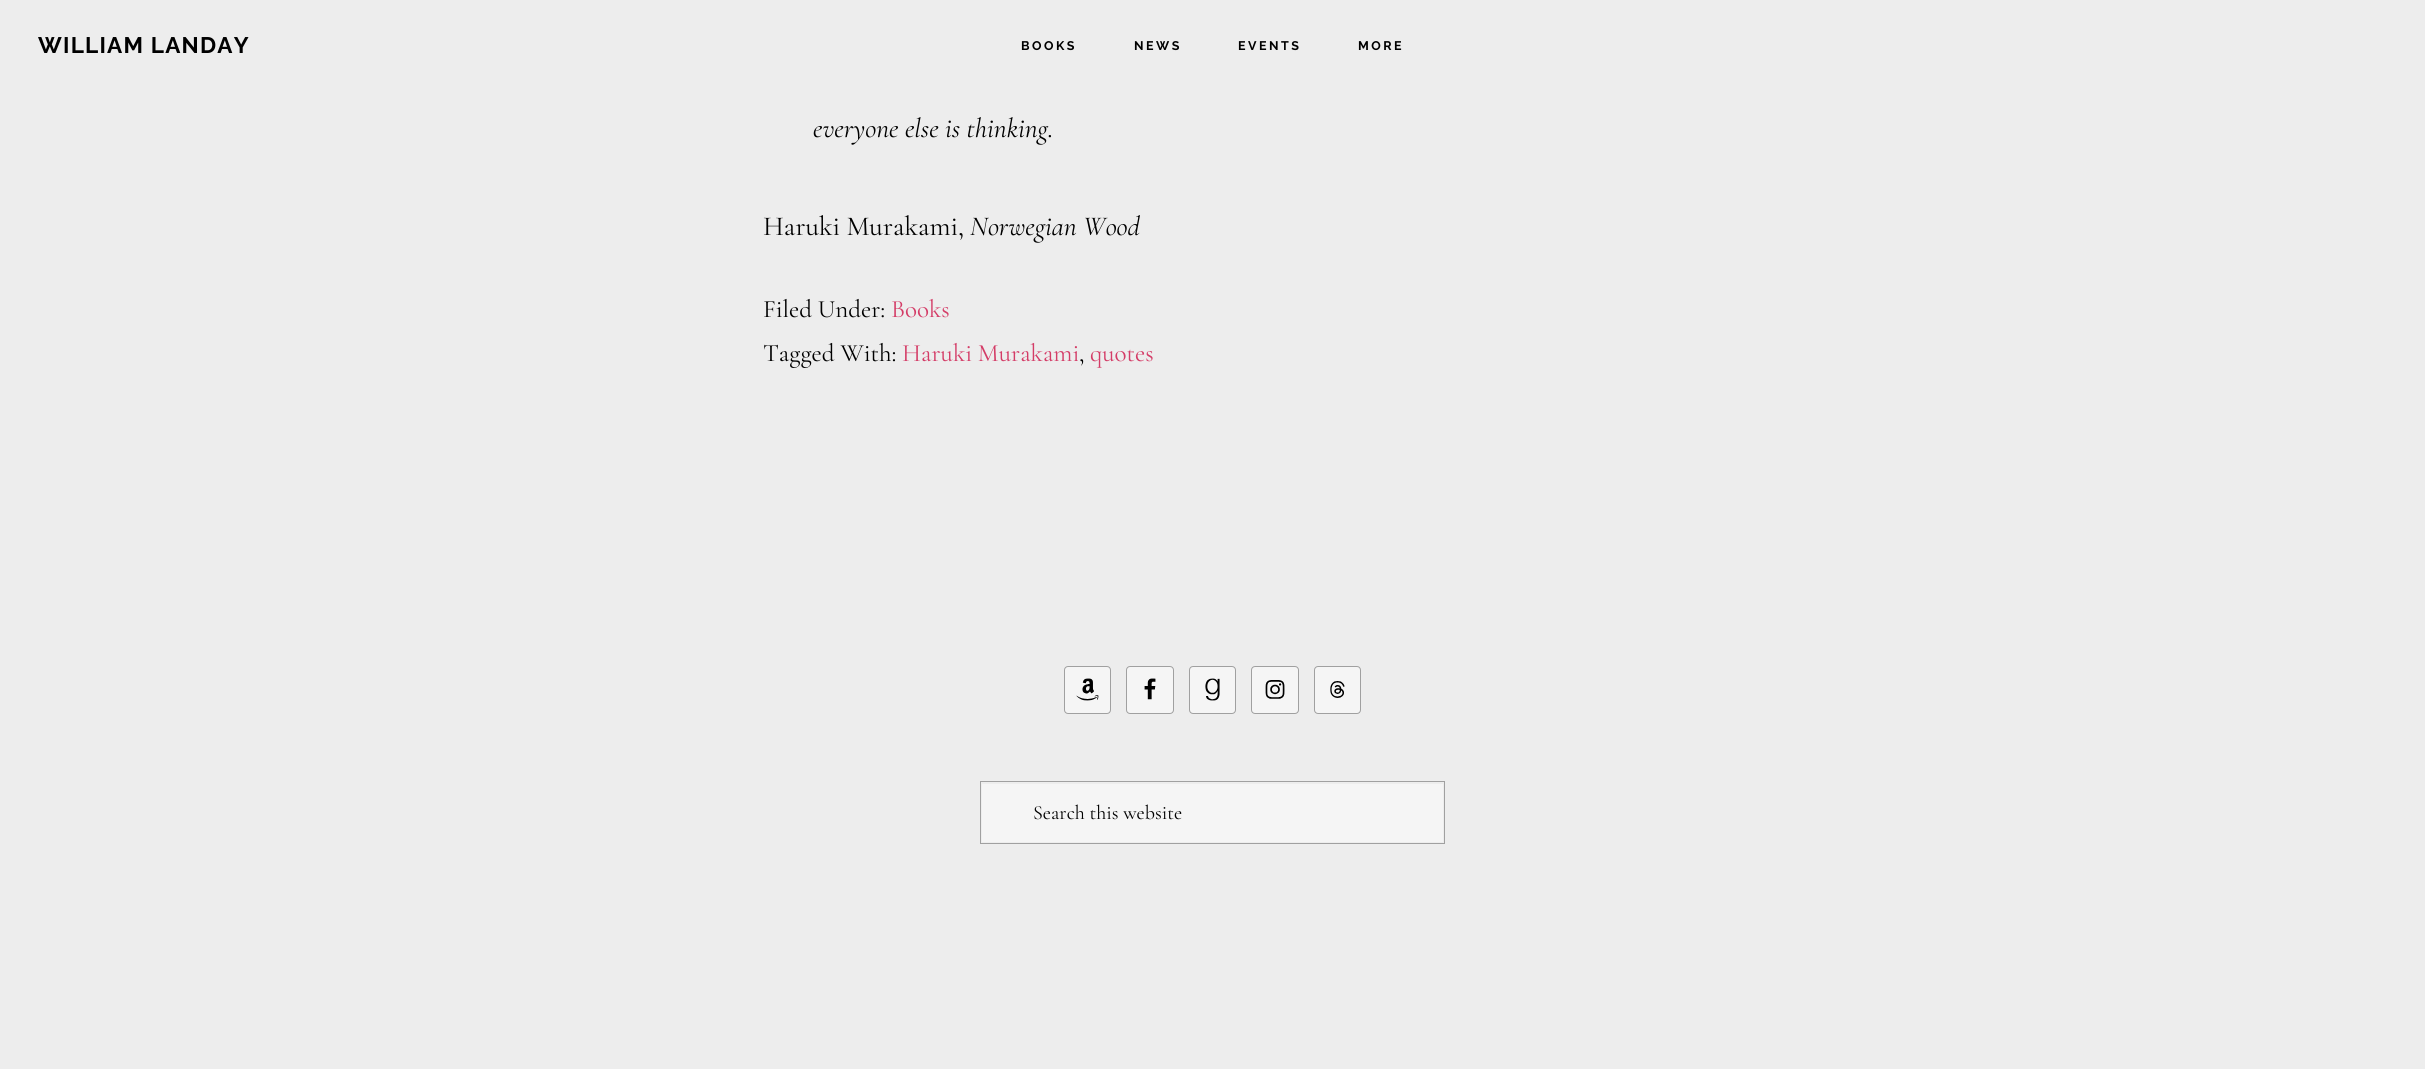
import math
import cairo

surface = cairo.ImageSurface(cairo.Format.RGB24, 2425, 1069)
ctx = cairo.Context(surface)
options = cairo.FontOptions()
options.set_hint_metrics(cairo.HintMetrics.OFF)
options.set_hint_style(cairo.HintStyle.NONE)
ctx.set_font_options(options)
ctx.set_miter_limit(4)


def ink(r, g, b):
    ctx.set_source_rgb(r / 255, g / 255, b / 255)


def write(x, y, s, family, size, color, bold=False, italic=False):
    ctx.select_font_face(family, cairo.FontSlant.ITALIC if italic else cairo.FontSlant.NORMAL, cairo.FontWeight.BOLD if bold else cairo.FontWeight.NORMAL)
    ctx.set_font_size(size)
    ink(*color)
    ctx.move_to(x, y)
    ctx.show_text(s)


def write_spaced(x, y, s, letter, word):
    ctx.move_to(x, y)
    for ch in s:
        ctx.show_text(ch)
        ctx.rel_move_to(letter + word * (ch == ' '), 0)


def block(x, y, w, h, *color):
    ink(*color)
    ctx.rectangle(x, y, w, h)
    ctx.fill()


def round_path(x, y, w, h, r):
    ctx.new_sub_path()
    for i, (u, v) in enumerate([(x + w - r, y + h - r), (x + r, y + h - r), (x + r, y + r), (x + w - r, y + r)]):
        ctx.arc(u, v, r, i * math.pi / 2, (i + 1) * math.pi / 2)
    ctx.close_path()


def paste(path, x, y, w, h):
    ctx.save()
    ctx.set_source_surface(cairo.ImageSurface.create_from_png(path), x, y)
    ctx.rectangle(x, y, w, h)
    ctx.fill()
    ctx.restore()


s1 = dict(family="Cormorant Garamond Light", size=27.5, color=(0, 0, 0), italic=True)
s2 = dict(family="Cormorant Garamond", size=27.5, color=(0, 0, 0))
s3 = dict(family="Cormorant Garamond", size=25, color=(0, 0, 0))
s4 = dict(family="Cormorant Garamond", size=25, color=(212, 60, 103))
s5 = dict(family="Cormorant Garamond", size=20, color=(0, 0, 0))

ink(237, 237, 237)
ctx.paint()
ctx.select_font_face("Raleway Thin")
ctx.set_font_size(22.5)
ink(0, 0, 0)
write_spaced(38, 53, "WILLIAM LANDAY", 1.25, 0)
ctx.set_font_size(12.5)
write_spaced(1021, 50, "BOOKS", 2.5, 0)
write_spaced(1134, 50, "NEWS", 2.5, 0)
write_spaced(1238, 50, "EVENTS", 2.5, 0)
write_spaced(1358, 50, "MORE", 2.5, 0)
write(813, 137, "everyone else is thinking.", **s1)
write(763, 235, "Haruki Murakami,", **s2)
write(970, 235, "Norwegian Wood", **s1)
write(763, 317, "Filed Under:", **s3)
write(891, 317, "Books", **s4)
write(763, 361, "Tagged With:", **s3)
write(902, 361, "Haruki Murakami", **s4)
write(1079, 361, ",", **s3)
write(1090, 361, "quotes", **s4)
ink(245, 245, 245)
round_path(1064.5, 666.5, 46, 47, 3.5)
ctx.fill_preserve()
ink(160, 160, 160)
ctx.set_line_width(1)
ctx.stroke()
paste("pic1.png", 1076, 678, 23, 23)
ink(245, 245, 245)
round_path(1126.5, 666.5, 47, 47, 3.5)
ctx.fill_preserve()
ink(160, 160, 160)
ctx.stroke()
paste("pic2.png", 1144, 678, 12, 22)
ink(245, 245, 245)
round_path(1189.5, 666.5, 46, 47, 3.5)
ctx.fill_preserve()
ink(160, 160, 160)
ctx.stroke()
paste("pic3.png", 1205, 678, 15, 23)
ink(245, 245, 245)
round_path(1251.5, 666.5, 47, 47, 3.5)
ctx.fill_preserve()
ink(160, 160, 160)
ctx.stroke()
paste("pic4.png", 1265, 680, 20, 19)
ink(245, 245, 245)
round_path(1314.5, 666.5, 46, 47, 3.5)
ctx.fill_preserve()
ink(160, 160, 160)
ctx.stroke()
paste("pic5.png", 1330, 681, 15, 17)
ctx.rectangle(980.5, 781.5, 464, 62)
ctx.stroke()
block(982, 784, 461, 58, 245, 245, 245)
write(1033, 819, "Search this website", **s5)
surface.write_to_png("screenshot.png")
